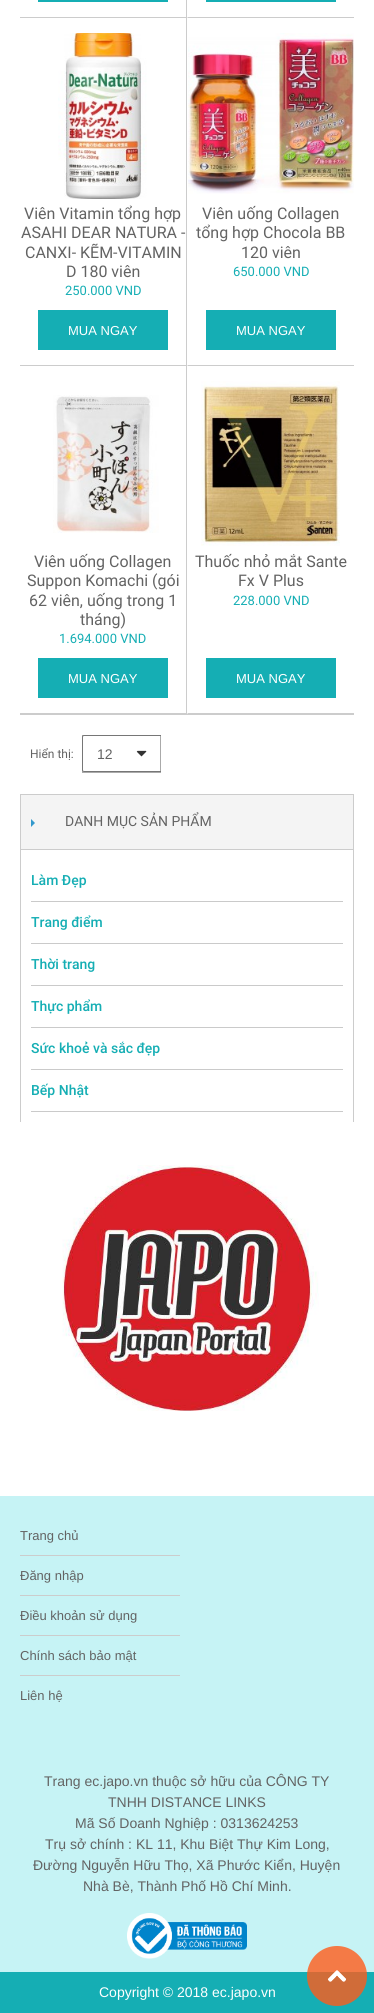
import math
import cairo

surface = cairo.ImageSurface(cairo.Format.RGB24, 374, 2013)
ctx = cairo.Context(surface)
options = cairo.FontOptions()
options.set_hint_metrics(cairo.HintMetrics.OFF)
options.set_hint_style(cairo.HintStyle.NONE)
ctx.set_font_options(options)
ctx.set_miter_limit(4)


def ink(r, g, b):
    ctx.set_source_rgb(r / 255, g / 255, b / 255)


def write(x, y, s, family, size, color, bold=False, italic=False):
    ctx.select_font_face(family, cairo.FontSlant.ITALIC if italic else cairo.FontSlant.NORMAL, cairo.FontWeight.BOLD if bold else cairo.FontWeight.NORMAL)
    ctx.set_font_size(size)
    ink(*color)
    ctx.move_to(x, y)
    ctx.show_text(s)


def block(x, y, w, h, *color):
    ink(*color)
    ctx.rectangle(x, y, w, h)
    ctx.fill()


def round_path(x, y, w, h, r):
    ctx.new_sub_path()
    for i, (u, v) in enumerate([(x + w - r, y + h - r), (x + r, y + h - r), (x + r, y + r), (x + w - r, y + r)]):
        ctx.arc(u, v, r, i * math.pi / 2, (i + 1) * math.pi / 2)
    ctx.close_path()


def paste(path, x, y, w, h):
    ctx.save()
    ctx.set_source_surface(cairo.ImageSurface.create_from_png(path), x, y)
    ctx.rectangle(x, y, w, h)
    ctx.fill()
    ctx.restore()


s1 = dict(family="Roboto", size=16, color=(99, 99, 99))
s2 = dict(family="Roboto", size=13, color=(21, 174, 180))
s3 = dict(family="Liberation Sans", size=13, color=(255, 255, 255))
s4 = dict(family="Roboto", size=12, color=(99, 99, 99))
s5 = dict(family="Liberation Sans", size=14, color=(99, 99, 99))
s6 = dict(family="Roboto", size=14, color=(99, 99, 99))
s7 = dict(family="Roboto Medium", size=14, color=(21, 174, 180))
s8 = dict(family="Liberation Sans", size=13, color=(99, 99, 99))
s9 = dict(family="Liberation Sans", size=14, color=(255, 255, 255))

ink(255, 255, 255)
ctx.paint()
block(186, 0, 1, 714, 204, 204, 204)
block(20, 17, 167, 1, 204, 204, 204)
block(38, 0, 130, 2, 21, 174, 180)
ink(204, 204, 204)
ctx.new_path()
ctx.move_to(354, 18)
ctx.line_to(187, 18)
ctx.line_to(188, 17)
ctx.line_to(354, 17)
ctx.close_path()
ctx.fill()
block(206, 0, 130, 2, 21, 174, 180)
block(20, 365, 167, 1, 204, 204, 204)
paste("pic1.png", 58, 33, 89, 166)
write(24, 219, "Viên Vitamin tổng hợp", **s1)
write(21, 238, "ASAHI DEAR NATURA -", **s1)
write(25, 258, "CANXI- KẼM-VITAMIN", **s1)
write(66, 277, "D 180 viên", **s1)
write(65, 295, "250.000 VND", **s2)
block(38, 310, 130, 40, 21, 174, 180)
write(68, 335, "MUA NGAY", **s3)
ink(204, 204, 204)
ctx.new_path()
ctx.move_to(354, 366)
ctx.line_to(187, 366)
ctx.line_to(188, 365)
ctx.line_to(354, 365)
ctx.close_path()
ctx.fill()
paste("pic2.png", 188, 33, 166, 161)
write(202, 219, "Viên uống Collagen", **s1)
write(196, 238, "tổng hợp Chocola BB", **s1)
write(241, 258, "120 viên", **s1)
write(233, 276, "650.000 VND", **s2)
block(206, 310, 130, 40, 21, 174, 180)
write(236, 335, "MUA NGAY", **s3)
block(20, 713, 167, 1, 204, 204, 204)
paste("pic3.png", 53, 395, 106, 138)
write(34, 567, "Viên uống Collagen", **s1)
write(27, 586, "Suppon Komachi (gói", **s1)
write(29, 606, "62 viên, uống trong 1", **s1)
write(80, 625, "tháng)", **s1)
write(59, 643, "1.694.000 VND", **s2)
block(38, 658, 130, 40, 21, 174, 180)
write(68, 683, "MUA NGAY", **s3)
ink(204, 204, 204)
ctx.new_path()
ctx.move_to(354, 714)
ctx.line_to(187, 714)
ctx.line_to(188, 713)
ctx.line_to(354, 713)
ctx.close_path()
ctx.fill()
paste("pic4.png", 201, 381, 139, 165)
write(195, 567, "Thuốc nhỏ mắt Sante", **s1)
write(238, 586, "Fx V Plus", **s1)
write(233, 605, "228.000 VND", **s2)
block(206, 658, 130, 40, 21, 174, 180)
write(236, 683, "MUA NGAY", **s3)
block(20, 714, 334, 1, 204, 204, 204)
write(30, 758, "Hiển thị:", **s4)
paste("pic5.png", 82, 735, 79, 38)
ctx.save()
ctx.rectangle(82, 735, 79, 38)
ctx.clip()
round_path(82.5, 735.5, 149, 36, 1.5)
ink(118, 118, 118)
ctx.set_line_width(1)
ctx.stroke()
ctx.restore()
write(97, 759, "12", **s5)
ink(244, 244, 244)
ctx.rectangle(20.5, 794.5, 333, 55)
ctx.fill_preserve()
ink(204, 204, 204)
ctx.set_line_width(1)
ctx.stroke()
ink(51, 153, 204)
ctx.new_path()
ctx.move_to(31, 827)
ctx.line_to(31, 819)
ctx.line_to(35, 823)
ctx.close_path()
ctx.fill()
write(65, 826, "DANH MỤC SẢN PHẨM", **s6)
block(353, 850, 1, 272, 204, 204, 204)
block(20, 850, 1, 272, 204, 204, 204)
block(31, 901, 312, 1, 202, 202, 202)
write(31, 885, "Làm Đẹp", **s7)
block(31, 943, 312, 1, 202, 202, 202)
write(31, 927, "Trang điểm", **s7)
block(31, 985, 312, 1, 202, 202, 202)
write(31, 969, "Thời trang", **s7)
block(31, 1027, 312, 1, 202, 202, 202)
write(31, 1011, "Thực phẩm", **s7)
block(31, 1069, 312, 1, 202, 202, 202)
write(31, 1053, "Sức khoẻ và sắc đẹp", **s7)
block(31, 1111, 312, 1, 202, 202, 202)
write(31, 1095, "Bếp Nhật", **s7)
paste("pic6.png", 62, 1165, 257, 246)
block(0, 1496, 374, 476, 198, 243, 245)
block(0, 1972, 374, 41, 21, 174, 180)
paste("pic7.png", 307, 1946, 60, 60)
block(20, 1555, 160, 1, 204, 204, 204)
write(20, 1540, "Trang chủ", **s8)
block(20, 1595, 160, 1, 204, 204, 204)
write(20, 1580, "Đăng nhập", **s8)
block(20, 1635, 160, 1, 204, 204, 204)
write(20, 1620, "Điều khoản sử dụng", **s8)
block(20, 1675, 160, 1, 204, 204, 204)
write(20, 1660, "Chính sách bảo mật", **s8)
write(20, 1700, "Liên hệ", **s8)
write(44, 1786, "Trang ec.japo.vn thuộc sở hữu của CÔNG TY", **s5)
write(108, 1807, "TNHH DISTANCE LINKS", **s5)
write(75, 1828, "Mã Số Doanh Nghiệp : 0313624253", **s5)
write(45, 1849, "Trụ sở chính : KL 11, Khu Biệt Thự Kim Long,", **s5)
write(33, 1870, "Đường Nguyễn Hữu Thọ, Xã Phước Kiển, Huyện", **s5)
write(83, 1891, "Nhà Bè, Thành Phố Hồ Chí Minh.", **s5)
paste("pic8.png", 127, 1913, 120, 46)
write(99, 1997, "Copyright © 2018 ec.japo.vn", **s9)
surface.write_to_png("screenshot.png")
